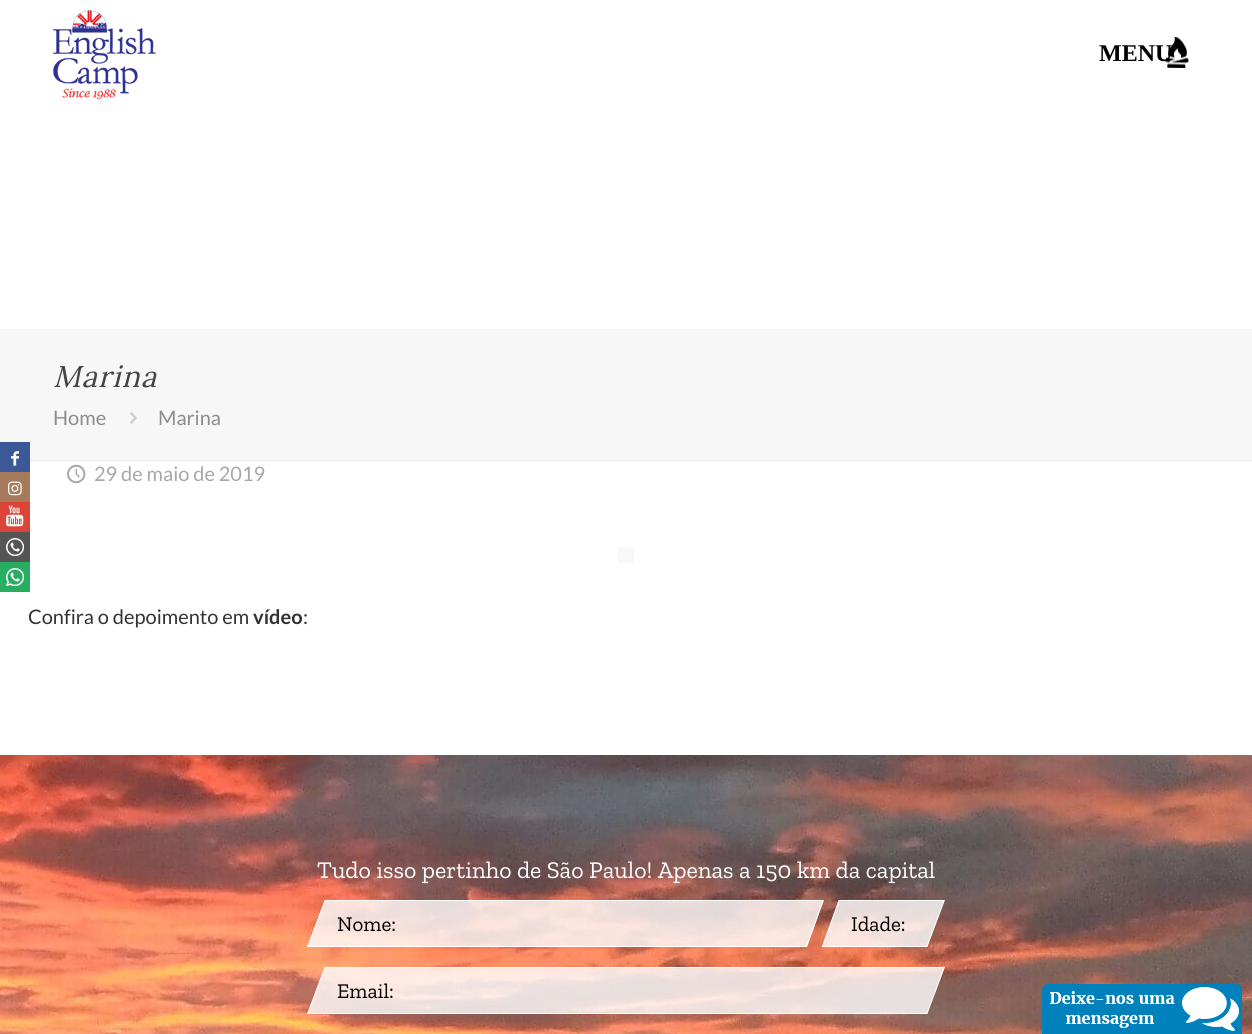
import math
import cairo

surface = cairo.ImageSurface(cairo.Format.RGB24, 1252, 1034)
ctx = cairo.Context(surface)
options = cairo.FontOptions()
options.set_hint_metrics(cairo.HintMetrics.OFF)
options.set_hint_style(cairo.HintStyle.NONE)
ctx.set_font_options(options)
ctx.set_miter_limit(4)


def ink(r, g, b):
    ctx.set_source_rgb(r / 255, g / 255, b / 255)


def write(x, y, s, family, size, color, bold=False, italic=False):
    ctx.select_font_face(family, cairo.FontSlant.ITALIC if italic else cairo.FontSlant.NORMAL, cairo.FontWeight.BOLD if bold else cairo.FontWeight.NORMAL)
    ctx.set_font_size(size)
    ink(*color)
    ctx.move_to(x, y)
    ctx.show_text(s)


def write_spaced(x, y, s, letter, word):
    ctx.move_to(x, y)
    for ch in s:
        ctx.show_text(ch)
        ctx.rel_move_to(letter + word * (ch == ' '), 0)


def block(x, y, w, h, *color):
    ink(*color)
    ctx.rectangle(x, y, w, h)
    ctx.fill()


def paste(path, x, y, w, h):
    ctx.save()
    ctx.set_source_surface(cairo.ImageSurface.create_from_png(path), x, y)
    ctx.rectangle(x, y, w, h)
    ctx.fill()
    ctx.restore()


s1 = dict(family="Liberation Serif", size=24, color=(0, 0, 0), bold=True)
s2 = dict(family="Lato", size=20, color=(140, 140, 140))
s3 = dict(family="Lato", size=20, color=(168, 168, 168))
s4 = dict(family="Lato", size=20, color=(51, 51, 51))
s5 = dict(family="Lato", size=20, color=(51, 51, 51), bold=True)
s6 = dict(family="Zilla Slab", size=24, color=(255, 255, 255))
s7 = dict(family="Zilla Slab", size=21, color=(0, 0, 0))

ink(255, 255, 255)
ctx.paint()
paste("pic1.png", 53, 10, 103, 89)
paste("pic2.png", 1165, 37, 24, 31)
write(1099, 61, "MENU", **s1)
block(0, 329, 1252, 131, 247, 247, 247)
ctx.select_font_face("Lora", cairo.FontSlant.ITALIC)
ctx.set_font_size(30)
ink(68, 68, 68)
write_spaced(53, 387, "Marina", 1, 0)
write(53, 425, "Home", **s2)
paste("pic3.png", 130, 412, 7, 12)
write(158, 425, "Marina", **s2)
paste("pic4.png", 30, 460, 1222, 2)
block(0, 442, 30, 30, 59, 89, 152)
paste("pic5.png", 11, 451, 8, 15)
block(0, 472, 30, 30, 166, 123, 91)
paste("pic6.png", 8, 481, 14, 15)
block(0, 502, 30, 30, 219, 68, 55)
paste("pic7.png", 6, 505, 18, 22)
block(0, 532, 30, 30, 85, 85, 85)
paste("pic8.png", 6, 538, 18, 18)
block(0, 562, 30, 30, 39, 174, 96)
paste("pic9.png", 6, 568, 18, 18)
paste("pic10.png", 67, 464, 19, 20)
write(94, 481, "29 de maio de 2019", **s3)
block(618, 547, 16, 16, 248, 248, 248)
write(28, 624, "Confira o depoimento em", **s4)
write(253, 624, "vídeo", **s5)
write(303, 624, ":", **s4)
paste("pic11.png", 0, 755, 1252, 279)
write(317, 878, "Tudo isso pertinho de São Paulo! Apenas a 150 km da capital", **s6)
ctx.set_source_rgba(1, 1, 1, 0.8)
ctx.new_path()
ctx.move_to(325, 900)
ctx.line_to(824, 900)
ctx.line_to(807, 947)
ctx.line_to(307, 947)
ctx.close_path()
ctx.fill()
ctx.new_path()
ctx.move_to(325, 900.5)
ctx.line_to(823, 900.5)
ctx.line_to(806.5, 946.5)
ctx.line_to(308, 946.5)
ctx.close_path()
ink(255, 255, 255)
ctx.set_line_width(1)
ctx.stroke()
write(337, 931, "Nome:", **s7)
ctx.set_source_rgba(1, 1, 1, 0.8)
ctx.new_path()
ctx.move_to(839, 900)
ctx.line_to(945, 900)
ctx.line_to(927, 947)
ctx.line_to(822, 947)
ctx.close_path()
ctx.fill()
ctx.new_path()
ctx.move_to(839, 900.5)
ctx.line_to(944, 900.5)
ctx.line_to(927, 946.5)
ctx.line_to(822.5, 946.5)
ctx.close_path()
ink(255, 255, 255)
ctx.stroke()
write(851, 931, "Idade:", **s7)
ctx.set_source_rgba(1, 1, 1, 0.8)
ctx.new_path()
ctx.move_to(325, 967)
ctx.line_to(945, 967)
ctx.line_to(927, 1014)
ctx.line_to(307, 1014)
ctx.close_path()
ctx.fill()
ctx.new_path()
ctx.move_to(325, 967.5)
ctx.line_to(944, 967.5)
ctx.line_to(927, 1013.5)
ctx.line_to(308, 1013.5)
ctx.close_path()
ink(255, 255, 255)
ctx.stroke()
write(337, 998, "Email:", **s7)
paste("pic12.png", 1042, 984, 200, 50)
surface.write_to_png("screenshot.png")
